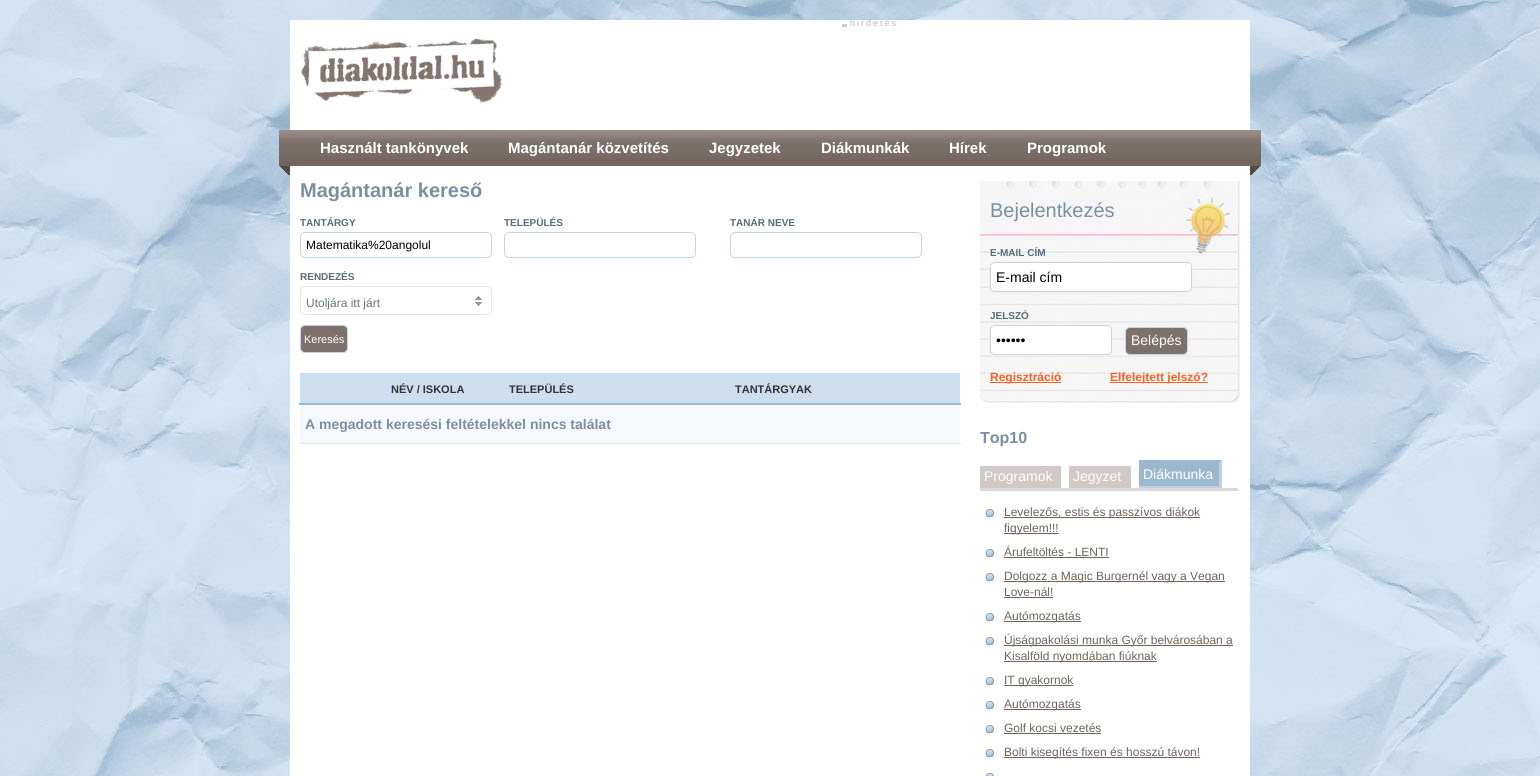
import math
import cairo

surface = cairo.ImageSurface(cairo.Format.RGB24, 1540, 776)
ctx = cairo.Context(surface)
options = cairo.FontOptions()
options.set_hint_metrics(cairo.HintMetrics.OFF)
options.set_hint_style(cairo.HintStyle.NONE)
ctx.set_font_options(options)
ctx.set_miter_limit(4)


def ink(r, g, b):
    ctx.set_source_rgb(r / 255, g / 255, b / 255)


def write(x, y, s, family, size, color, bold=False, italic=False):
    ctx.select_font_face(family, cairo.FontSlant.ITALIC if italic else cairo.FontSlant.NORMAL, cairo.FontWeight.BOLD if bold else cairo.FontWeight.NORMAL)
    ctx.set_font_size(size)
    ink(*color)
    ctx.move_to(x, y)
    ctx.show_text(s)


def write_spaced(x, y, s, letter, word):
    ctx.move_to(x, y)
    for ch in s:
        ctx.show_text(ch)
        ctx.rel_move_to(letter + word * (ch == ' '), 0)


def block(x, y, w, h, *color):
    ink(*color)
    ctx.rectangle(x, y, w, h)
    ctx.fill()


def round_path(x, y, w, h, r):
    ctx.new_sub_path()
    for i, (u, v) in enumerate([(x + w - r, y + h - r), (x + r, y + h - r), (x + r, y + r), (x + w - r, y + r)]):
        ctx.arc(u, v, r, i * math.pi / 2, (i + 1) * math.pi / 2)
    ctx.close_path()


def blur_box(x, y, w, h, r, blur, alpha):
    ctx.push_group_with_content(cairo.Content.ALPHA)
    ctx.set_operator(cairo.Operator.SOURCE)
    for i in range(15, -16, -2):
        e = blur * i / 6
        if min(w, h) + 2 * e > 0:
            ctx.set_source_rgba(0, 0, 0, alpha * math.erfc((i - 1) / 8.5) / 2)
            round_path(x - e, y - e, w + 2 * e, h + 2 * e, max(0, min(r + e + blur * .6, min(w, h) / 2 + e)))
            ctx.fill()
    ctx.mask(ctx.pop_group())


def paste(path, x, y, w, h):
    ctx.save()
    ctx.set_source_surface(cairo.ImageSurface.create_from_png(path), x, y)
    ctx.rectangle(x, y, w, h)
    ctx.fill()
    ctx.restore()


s1 = dict(family="Liberation Sans", size=15, color=(255, 255, 255), bold=True)
s2 = dict(family="Liberation Sans", size=20, color=(124, 142, 162), bold=True)
s3 = dict(family="Liberation Sans", size=10, color=(87, 106, 126), bold=True)
s4 = dict(family="Liberation Sans", size=12, color=(0, 0, 0))
s5 = dict(family="Liberation Sans", size=12, color=(101, 116, 130))
s6 = dict(family="Liberation Sans", size=11, color=(255, 255, 255))
s7 = dict(family="Liberation Sans", size=11, color=(51, 51, 51), bold=True)
s8 = dict(family="Liberation Sans", size=14, color=(124, 142, 162), bold=True)
s9 = dict(family="Liberation Sans", size=20, color=(124, 142, 162))
s10 = dict(family="Liberation Sans", size=14, color=(0, 0, 0))
s11 = dict(family="Liberation Sans", size=14, color=(255, 255, 255))
s12 = dict(family="Liberation Sans", size=12, color=(246, 97, 32), bold=True)
s13 = dict(family="Liberation Sans", size=16, color=(124, 142, 162), bold=True)
s14 = dict(family="Liberation Sans", size=12, color=(113, 98, 91))

ink(255, 255, 255)
ctx.paint()
paste("pic1.png", 0, 0, 1540, 776)
ink(255, 255, 255)
ctx.rectangle(295, 25, 950, 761)
ctx.fill_preserve()
ctx.set_line_width(10)
ctx.stroke()
ctx.select_font_face("Liberation Sans")
ctx.set_font_size(9)
ink(190, 210, 228)
write_spaced(850, 26, "hirdetés", 2, 0)
block(842, 24, 5, 3, 190, 210, 228)
write_spaced(850, 26, "hirdetés", 2, 0)
paste("pic2.png", 300, 38, 202, 70)
paste("pic3.png", 279, 130, 21, 45)
paste("pic4.png", 300, 130, 940, 36)
write(320, 153, "Használt tankönyvek", **s1)
write(508, 153, "Magántanár közvetítés", **s1)
write(709, 153, "Jegyzetek", **s1)
write(821, 153, "Diákmunkák", **s1)
write(949, 153, "Hírek", **s1)
write(1027, 153, "Programok", **s1)
paste("pic5.png", 1240, 130, 21, 45)
write(300, 197, "Magántanár kereső", **s2)
write(300, 226, "TANTÁRGY", **s3)
round_path(300.5, 232.5, 191, 25, 4.5)
ink(196, 213, 234)
ctx.set_line_width(1)
ctx.stroke()
write(306, 249, "Matematika%20angolul", **s4)
write(504, 226, "TELEPÜLÉS", **s3)
round_path(504.5, 232.5, 191, 25, 4.5)
ink(196, 213, 234)
ctx.stroke()
write(730, 226, "TANÁR NEVE", **s3)
round_path(730.5, 232.5, 191, 25, 4.5)
ink(196, 213, 234)
ctx.stroke()
write(300, 280, "RENDEZÉS", **s3)
paste("pic6.png", 475, 296, 7, 10)
round_path(300.5, 286.5, 191, 28, 4.5)
ink(230, 230, 230)
ctx.stroke()
write(306, 307, "Utoljára itt járt", **s5)
ink(124, 113, 107)
round_path(300.5, 325.5, 47, 27, 4.5)
ctx.fill_preserve()
ink(196, 213, 234)
ctx.stroke()
write(304, 343, "Keresés", **s6)
block(300, 373, 660, 30, 205, 222, 240)
write(391, 393, "NÉV / ISKOLA", **s7)
write(509, 393, "TELEPÜLÉS", **s7)
block(299, 403, 662, 2, 156, 184, 207)
write(735, 393, "TANTÁRGYAK", **s7)
block(300, 405, 660, 38, 245, 249, 253)
block(300, 443, 661, 1, 225, 233, 240)
write(305, 429, "A megadott keresési feltételekkel nincs találat", **s8)
paste("pic7.png", 980, 181, 260, 213)
write(990, 217, "Bejelentkezés", **s9)
write(990, 256, "E-MAIL CÍM", **s3)
ink(238, 238, 238)
blur_box(990, 263, 202, 30, 5, 1.5, 1)
ink(255, 255, 255)
round_path(990.5, 262.5, 201, 29, 4.5)
ctx.fill_preserve()
ink(196, 213, 234)
ctx.stroke()
write(996, 282, "E-mail cím", **s10)
write(990, 319, "JELSZÓ", **s3)
ink(238, 238, 238)
blur_box(990, 326, 122, 30, 5, 1.5, 1)
ink(255, 255, 255)
round_path(990.5, 325.5, 121, 29, 4.5)
ctx.fill_preserve()
ink(196, 213, 234)
ctx.stroke()
write(996, 345, "••••••", **s10)
ink(238, 238, 238)
blur_box(1125, 328, 63, 28, 5, 1.5, 1)
ink(124, 113, 107)
round_path(1125.5, 327.5, 62, 27, 4.5)
ctx.fill_preserve()
ink(196, 213, 234)
ctx.stroke()
write(1131, 345, "Belépés", **s11)
block(990, 382, 71, 1, 246, 97, 32)
write(990, 381, "Regisztráció", **s12)
block(1110, 382, 98, 1, 246, 97, 32)
write(1110, 381, "Elfelejtett jelszó?", **s12)
paste("pic8.png", 980, 394, 260, 10)
write(980, 443, "Top10", **s13)
ink(221, 215, 213)
ctx.new_path()
ctx.move_to(1240, 491)
ctx.line_to(980, 491)
ctx.line_to(980, 488)
ctx.line_to(1237, 488)
ctx.close_path()
ctx.fill()
block(980, 466, 81, 22, 209, 201, 198)
write(984, 481, "Programok", **s11)
block(1069, 466, 62, 22, 209, 201, 198)
write(1073, 481, "Jegyzet", **s11)
block(1139, 460, 83, 26, 156, 184, 207)
ink(188, 209, 226)
ctx.new_path()
ctx.move_to(1222, 460)
ctx.line_to(1222, 488)
ctx.line_to(1219, 486)
ctx.line_to(1219, 462)
ctx.close_path()
ctx.fill()
block(1139, 486, 83, 2, 188, 209, 226)
write(1143, 479, "Diákmunka", **s11)
paste("pic9.png", 984, 509, 11, 10)
block(1004, 517, 196, 1, 113, 98, 91)
write(1004, 516, "Levelezős, estis és passzívos diákok", **s14)
block(1004, 533, 55, 1, 113, 98, 91)
write(1004, 532, "figyelem!!!", **s14)
paste("pic9.png", 984, 549, 11, 10)
write(1004, 556, "Árufeltöltés - LENTI", **s14)
block(1004, 557, 105, 1, 113, 98, 91)
paste("pic9.png", 984, 573, 11, 10)
block(1004, 581, 221, 1, 113, 98, 91)
write(1004, 580, "Dolgozz a Magic Burgernél vagy a Vegan", **s14)
write(1004, 596, "Love-nál!", **s14)
block(1004, 597, 49, 1, 113, 98, 91)
paste("pic9.png", 984, 613, 11, 10)
block(1004, 621, 77, 1, 113, 98, 91)
write(1004, 620, "Autómozgatás", **s14)
paste("pic9.png", 984, 637, 11, 10)
block(1004, 645, 229, 1, 113, 98, 91)
write(1004, 644, "Újságpakolási munka Győr belvárosában a", **s14)
block(1004, 661, 153, 1, 113, 98, 91)
write(1004, 660, "Kisalföld nyomdában fiúknak", **s14)
paste("pic9.png", 984, 677, 11, 10)
block(1004, 685, 69, 1, 113, 98, 91)
write(1004, 684, "IT gyakornok", **s14)
paste("pic9.png", 984, 701, 11, 10)
block(1004, 709, 77, 1, 113, 98, 91)
write(1004, 708, "Autómozgatás", **s14)
paste("pic9.png", 984, 725, 11, 10)
write(1004, 732, "Golf kocsi vezetés", **s14)
block(1004, 733, 97, 1, 113, 98, 91)
paste("pic9.png", 984, 749, 11, 10)
block(1004, 757, 196, 1, 113, 98, 91)
write(1004, 756, "Bolti kisegítés fixen és hosszú távon!", **s14)
paste("pic10.png", 985, 773, 9, 3)
surface.write_to_png("screenshot.png")
